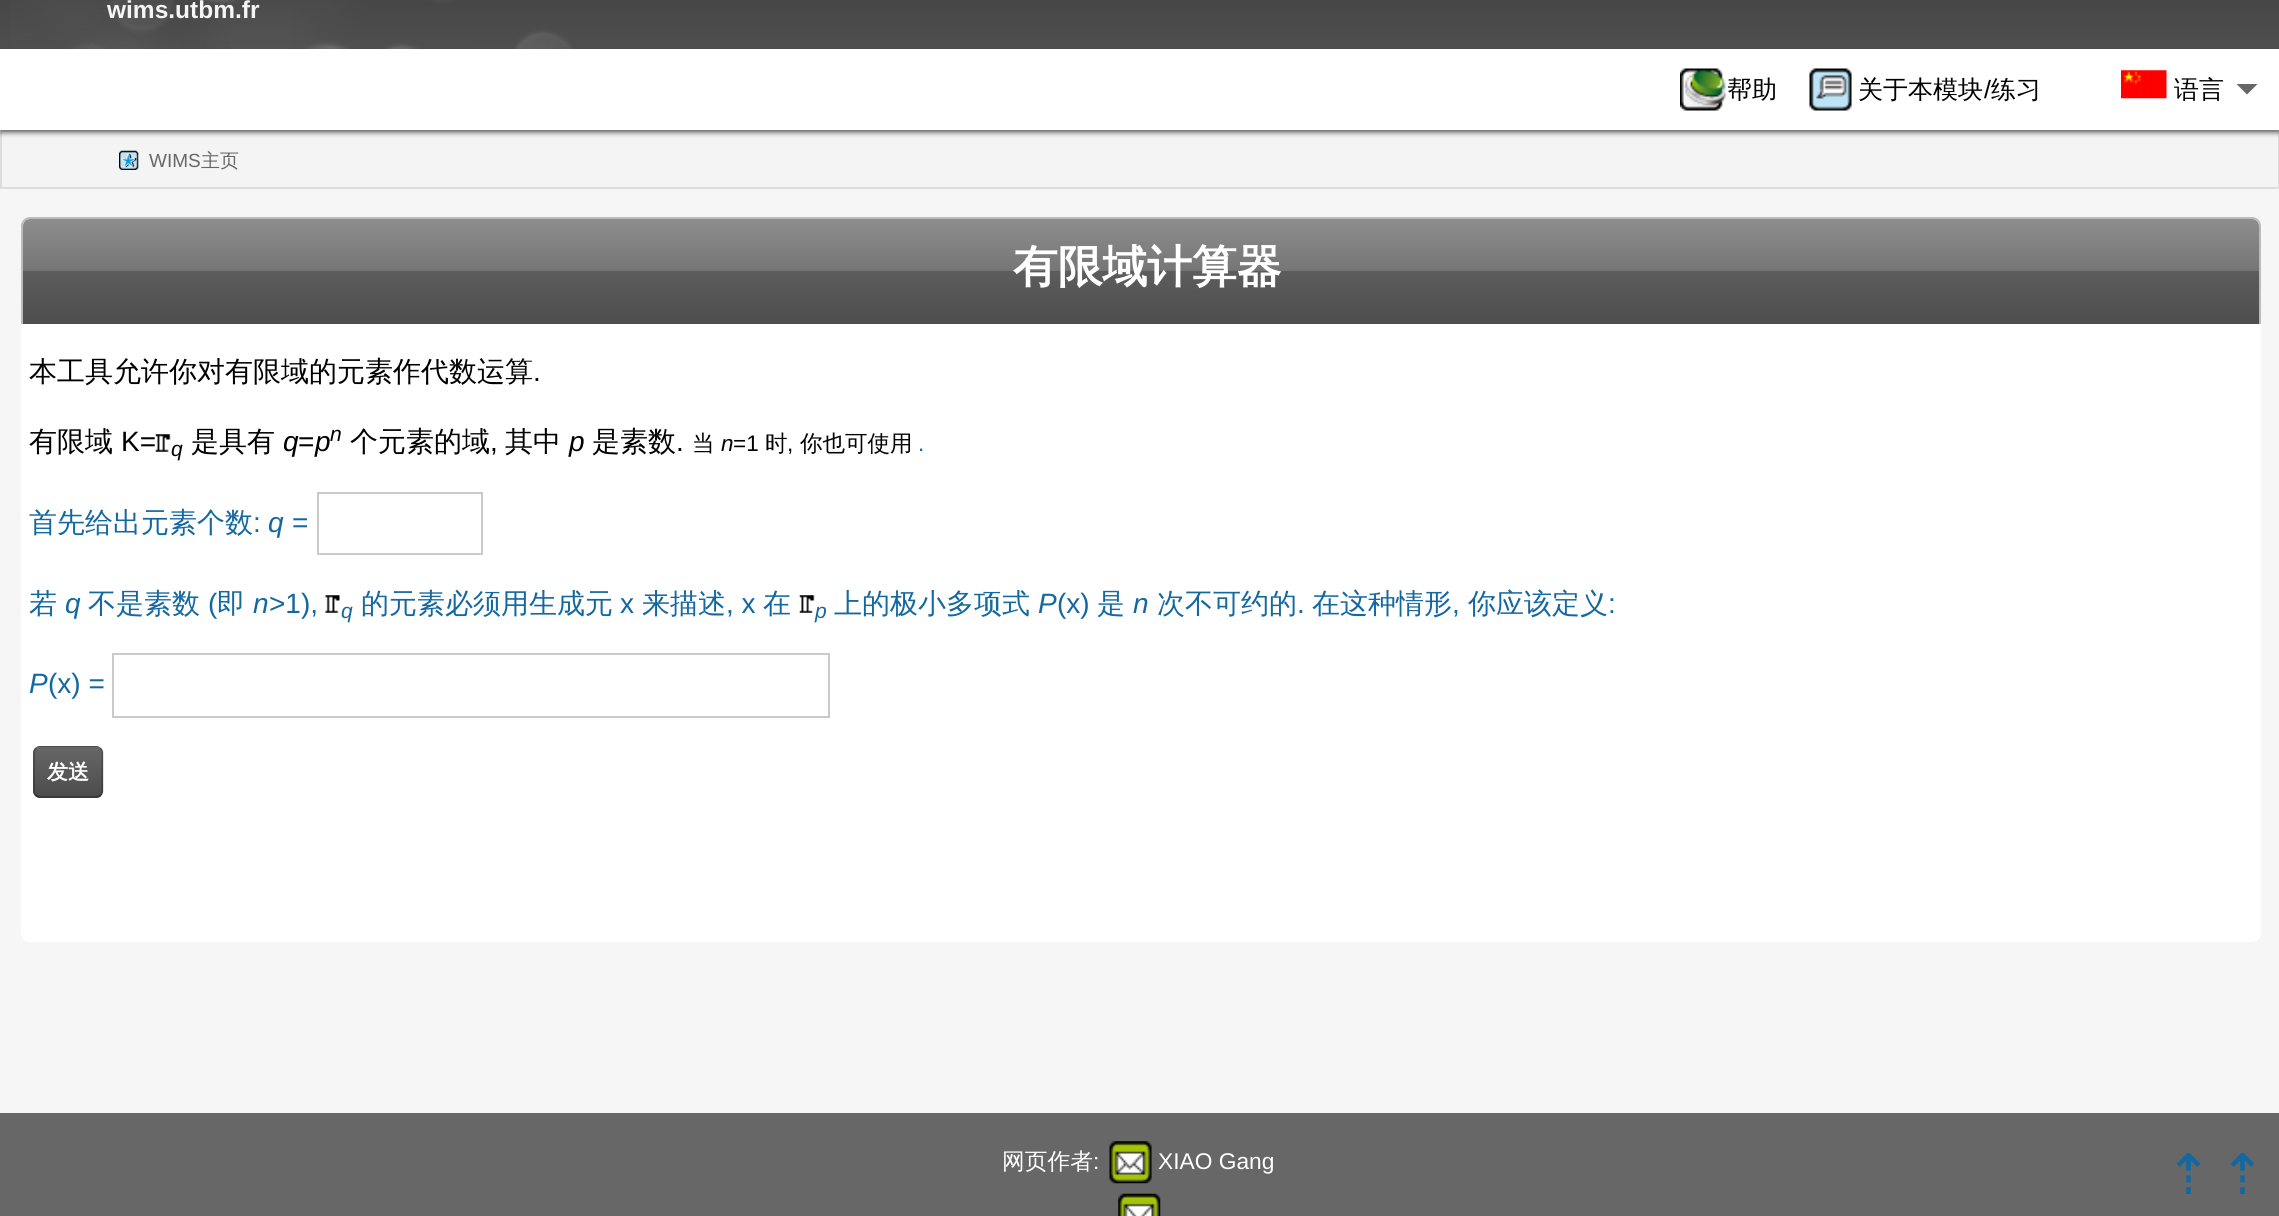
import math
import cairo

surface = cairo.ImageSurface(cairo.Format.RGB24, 2279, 1216)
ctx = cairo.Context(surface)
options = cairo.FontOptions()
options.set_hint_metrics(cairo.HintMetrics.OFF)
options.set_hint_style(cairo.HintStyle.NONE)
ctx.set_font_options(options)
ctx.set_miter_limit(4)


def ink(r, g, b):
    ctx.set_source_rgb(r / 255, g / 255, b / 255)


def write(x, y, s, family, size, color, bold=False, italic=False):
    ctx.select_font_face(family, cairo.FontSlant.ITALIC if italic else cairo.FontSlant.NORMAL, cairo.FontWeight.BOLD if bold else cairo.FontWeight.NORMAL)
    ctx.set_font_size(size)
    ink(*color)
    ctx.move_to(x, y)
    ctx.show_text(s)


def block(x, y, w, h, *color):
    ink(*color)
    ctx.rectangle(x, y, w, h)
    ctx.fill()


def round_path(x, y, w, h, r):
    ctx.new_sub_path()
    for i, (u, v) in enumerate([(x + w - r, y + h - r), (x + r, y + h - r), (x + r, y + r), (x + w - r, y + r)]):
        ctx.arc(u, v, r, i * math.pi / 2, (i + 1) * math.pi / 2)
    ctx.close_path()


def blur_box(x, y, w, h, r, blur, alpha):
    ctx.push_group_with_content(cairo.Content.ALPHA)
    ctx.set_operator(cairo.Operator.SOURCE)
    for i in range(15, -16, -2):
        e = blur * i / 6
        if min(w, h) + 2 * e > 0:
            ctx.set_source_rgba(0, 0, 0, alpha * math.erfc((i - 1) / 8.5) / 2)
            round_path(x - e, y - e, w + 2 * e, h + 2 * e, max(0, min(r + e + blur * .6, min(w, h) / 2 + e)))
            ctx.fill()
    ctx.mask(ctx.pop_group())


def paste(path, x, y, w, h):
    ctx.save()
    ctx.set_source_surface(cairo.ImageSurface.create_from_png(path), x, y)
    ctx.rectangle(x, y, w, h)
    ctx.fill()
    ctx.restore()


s1 = dict(family="Liberation Sans", size=24.5, color=(245, 245, 245), bold=True)
s2 = dict(family="WenQuanYi Zen Hei Medium", size=25, color=(0, 0, 0))
s3 = dict(family="Liberation Sans", size=25, color=(0, 0, 0))
s4 = dict(family="Liberation Sans", size=19, color=(103, 103, 103))
s5 = dict(family="WenQuanYi Zen Hei Medium", size=19, color=(103, 103, 103))
s6 = dict(family="WenQuanYi Zen Hei", size=44.75, color=(255, 255, 255), bold=True)
s7 = dict(family="WenQuanYi Zen Hei Medium", size=28, color=(0, 0, 0))
s8 = dict(family="Liberation Sans", size=28, color=(0, 0, 0))
s9 = dict(family="Liberation Sans", size=21, color=(0, 0, 0), italic=True)
s10 = dict(family="Liberation Sans", size=28, color=(0, 0, 0), italic=True)
s11 = dict(family="WenQuanYi Zen Hei Medium", size=22.5, color=(0, 0, 0))
s12 = dict(family="Liberation Sans", size=22.5, color=(0, 0, 0), italic=True)
s13 = dict(family="Liberation Sans", size=22.5, color=(0, 0, 0))
s14 = dict(family="Liberation Sans", size=22.5, color=(20, 104, 160))
s15 = dict(family="WenQuanYi Zen Hei Medium", size=28, color=(20, 104, 160))
s16 = dict(family="Liberation Sans", size=28, color=(20, 104, 160))
s17 = dict(family="Liberation Sans", size=28, color=(20, 104, 160), italic=True)
s18 = dict(family="Liberation Sans", size=21, color=(20, 104, 160), italic=True)
s19 = dict(family="WenQuanYi Zen Hei", size=21, color=(255, 255, 255), bold=True)
s20 = dict(family="DejaVu Sans", size=56, color=(20, 104, 160))
s21 = dict(family="WenQuanYi Zen Hei Medium", size=22.75, color=(255, 255, 255))
s22 = dict(family="Liberation Sans", size=22.75, color=(255, 255, 255))

ink(103, 103, 103)
ctx.paint()
paste("pic1.png", 11, 0, 562, 49)
gradient = cairo.LinearGradient(1140, -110, 1140, 189)
gradient.add_color_stop_rgba(0, 0, 0, 0, 0.5)
gradient.add_color_stop_rgba(1, 0, 0, 0, 0)
ctx.set_source(gradient)
ctx.rectangle(0, 0, 2279, 49)
ctx.fill()
write(107, 18, "wims.utbm.fr", **s1)
ink(244, 244, 244)
ctx.rectangle(1, 131, 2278, 57)
ctx.fill_preserve()
ink(220, 220, 220)
ctx.stroke()
ink(0, 0, 0)
blur_box(0, 53, 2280, 80, 0, 2.5, 0.5)
block(0, 49, 2279, 81, 255, 255, 255)
paste("pic2.png", 1680, 68, 46, 43)
write(1727, 98, "帮助", **s2)
paste("pic3.png", 1809, 68, 43, 43)
write(1858, 98, "关于本模块", **s2)
write(1984, 98, "/", **s3)
write(1991, 98, "练习", **s2)
paste("pic4.png", 2121, 70, 46, 29)
write(2174, 98, "语言", **s2)
ink(103, 103, 103)
ctx.new_path()
ctx.move_to(2236.5, 84)
ctx.line_to(2257.5, 84)
ctx.line_to(2247, 94.5)
ctx.close_path()
ctx.fill()
paste("pic5.png", 119, 150, 20, 20)
write(149, 167, "WIMS", **s4)
write(201, 167, "主页", **s5)
block(0, 189, 2279, 924, 246, 246, 246)
ink(255, 255, 255)
round_path(21, 217, 2240, 725, 9)
ctx.fill()
ink(103, 103, 103)
ctx.new_path()
ctx.move_to(30, 219)
ctx.line_to(2252, 219)
ctx.curve_to(2256, 219, 2259, 222, 2259, 226)
ctx.line_to(2259, 324)
ctx.line_to(23, 324)
ctx.line_to(23, 226)
ctx.curve_to(23, 222, 26, 219, 30, 219)
ctx.close_path()
ctx.fill()
gradient = cairo.LinearGradient(1141, 219, 1141, 324)
gradient.add_color_stop_rgba(0, 1, 1, 1, 0.25)
gradient.add_color_stop_rgba(0.49, 1, 1, 1, 0.1)
gradient.add_color_stop_rgba(0.5, 0, 0, 0, 0.1)
gradient.add_color_stop_rgba(1, 0, 0, 0, 0.25)
ctx.set_source(gradient)
ctx.new_path()
ctx.move_to(30, 219)
ctx.line_to(2252, 219)
ctx.curve_to(2256, 219, 2259, 222, 2259, 226)
ctx.line_to(2259, 324)
ctx.line_to(23, 324)
ctx.line_to(23, 226)
ctx.curve_to(23, 222, 26, 219, 30, 219)
ctx.close_path()
ctx.fill()
ink(187, 187, 187)
ctx.set_fill_rule(cairo.FillRule.EVEN_ODD)
ctx.new_path()
ctx.move_to(30, 217)
ctx.line_to(2252, 217)
ctx.curve_to(2257, 217, 2261, 221, 2261, 226)
ctx.line_to(2261, 324)
ctx.line_to(21, 324)
ctx.line_to(21, 226)
ctx.curve_to(21, 221, 25, 217, 30, 217)
ctx.close_path()
ctx.move_to(30, 219)
ctx.line_to(2252, 219)
ctx.curve_to(2256, 219, 2259, 222, 2259, 226)
ctx.line_to(2259, 324)
ctx.line_to(23, 324)
ctx.line_to(23, 226)
ctx.curve_to(23, 222, 26, 219, 30, 219)
ctx.close_path()
ctx.fill()
write(1013, 282, "有限域计算器", **s6)
write(29, 381, "本工具允许你对有限域的元素作代数运算", **s7)
write(533, 381, ".", **s8)
write(29, 451, "有限域", **s7)
write(121, 451, "K=", **s8)
paste("pic6.png", 155, 434, 16, 18)
write(171, 456, "q", **s9)
write(191, 451, "是具有", **s7)
write(283, 451, "q", **s10)
write(298, 451, "=", **s8)
write(315, 451, "p", **s10)
write(330, 441, "n", **s9)
write(350, 451, "个元素的域", **s7)
write(490, 451, ",", **s8)
write(505, 451, "其中", **s7)
write(569, 451, "p", **s10)
write(592, 451, "是素数", **s7)
write(676, 451, ".", **s8)
write(692, 451, "当", **s11)
write(721, 451, "n", **s12)
write(733, 451, "=1", **s13)
write(765, 451, "时", **s11)
write(787, 451, ",", **s13)
write(800, 451, "你也可使用", **s11)
write(918, 451, ".", **s14)
write(29, 532, "首先给出元素个数", **s15)
write(253, 532, ":", **s16)
write(268, 532, "q", **s17)
write(292, 532, "=", **s16)
ctx.rectangle(318, 493, 164, 61)
ink(202, 202, 202)
ctx.stroke()
write(29, 613, "若", **s15)
write(65, 613, "q", **s17)
write(88, 613, "不是素数", **s15)
write(208, 613, "(", **s16)
write(217, 613, "即", **s15)
write(253, 613, "n", **s17)
write(269, 613, ">1),", **s16)
paste("pic7.png", 325, 595, 15, 18)
write(341, 618, "q", **s18)
write(361, 613, "的元素必须用生成元", **s15)
write(620, 613, "x", **s16)
write(642, 613, "来描述", **s15)
write(726, 613, ", x", **s16)
write(763, 613, "在", **s15)
paste("pic8.png", 799, 595, 16, 18)
write(815, 618, "p", **s18)
write(834, 613, "上的极小多项式", **s15)
write(1038, 613, "P", **s17)
write(1057, 613, "(x)", **s16)
write(1097, 613, "是", **s15)
write(1133, 613, "n", **s17)
write(1157, 613, "次不可约的", **s15)
write(1297, 613, ".", **s16)
write(1312, 613, "在这种情形", **s15)
write(1452, 613, ",", **s16)
write(1468, 613, "你应该定义", **s15)
write(1608, 613, ":", **s16)
write(29, 693, "P", **s17)
write(48, 693, "(x) =", **s16)
ctx.rectangle(113, 654, 716, 63)
ink(202, 202, 202)
ctx.stroke()
ink(102, 102, 102)
round_path(33, 746, 70, 52, 7)
ctx.fill()
ctx.save()
ctx.set_fill_rule(cairo.FillRule.WINDING)
round_path(33, 746, 70, 52, 7)
ctx.clip()
gradient = cairo.LinearGradient(68, 698, 68, 747)
gradient.add_color_stop_rgba(0, 0, 0, 0, 0)
gradient.add_color_stop_rgba(1, 0, 0, 0, 0.25)
ctx.set_source(gradient)
ctx.rectangle(33, 746, 70, 1)
ctx.fill()
gradient = cairo.LinearGradient(68, 747, 68, 796)
gradient.add_color_stop_rgba(0, 0, 0, 0, 0)
gradient.add_color_stop_rgba(1, 0, 0, 0, 0.25)
ctx.set_source(gradient)
ctx.rectangle(33, 751, 70, 45)
ctx.fill()
ctx.restore()
ctx.new_path()
ctx.move_to(100.5, 748)
ctx.curve_to(101.5, 749.5, 102.5, 751, 102.5, 752.5)
ctx.line_to(102.5, 791)
ctx.curve_to(102.5, 792.5, 101.5, 794, 100.5, 795.5)
ctx.set_source_rgba(0, 0, 0, 0.25)
ctx.set_line_width(1.8)
ctx.stroke()
ctx.new_path()
ctx.move_to(100.5, 795.5)
ctx.curve_to(99.5, 796.5, 98, 797, 96, 797)
ctx.line_to(40, 797)
ctx.curve_to(38.5, 797, 37, 796.5, 36, 795.5)
ctx.set_source_rgba(0, 0, 0, 0.5)
ctx.stroke()
ctx.new_path()
ctx.move_to(36, 795.5)
ctx.curve_to(35, 794, 34, 792.5, 34, 791)
ctx.line_to(34, 752.5)
ctx.curve_to(34, 751, 35, 749.5, 36, 748)
ctx.set_source_rgba(0, 0, 0, 0.25)
ctx.stroke()
write(47, 779, "发送", **s19)
write(2165, 1194, "⇡", **s20)
write(2219, 1194, "⇡", **s20)
write(1002, 1169, "网页作者", **s21)
write(1093, 1169, ":", **s22)
paste("pic9.png", 1109, 1141, 43, 43)
write(1158, 1169, "XIAO Gang", **s22)
paste("pic10.png", 1118, 1193, 43, 23)
surface.write_to_png("screenshot.png")
